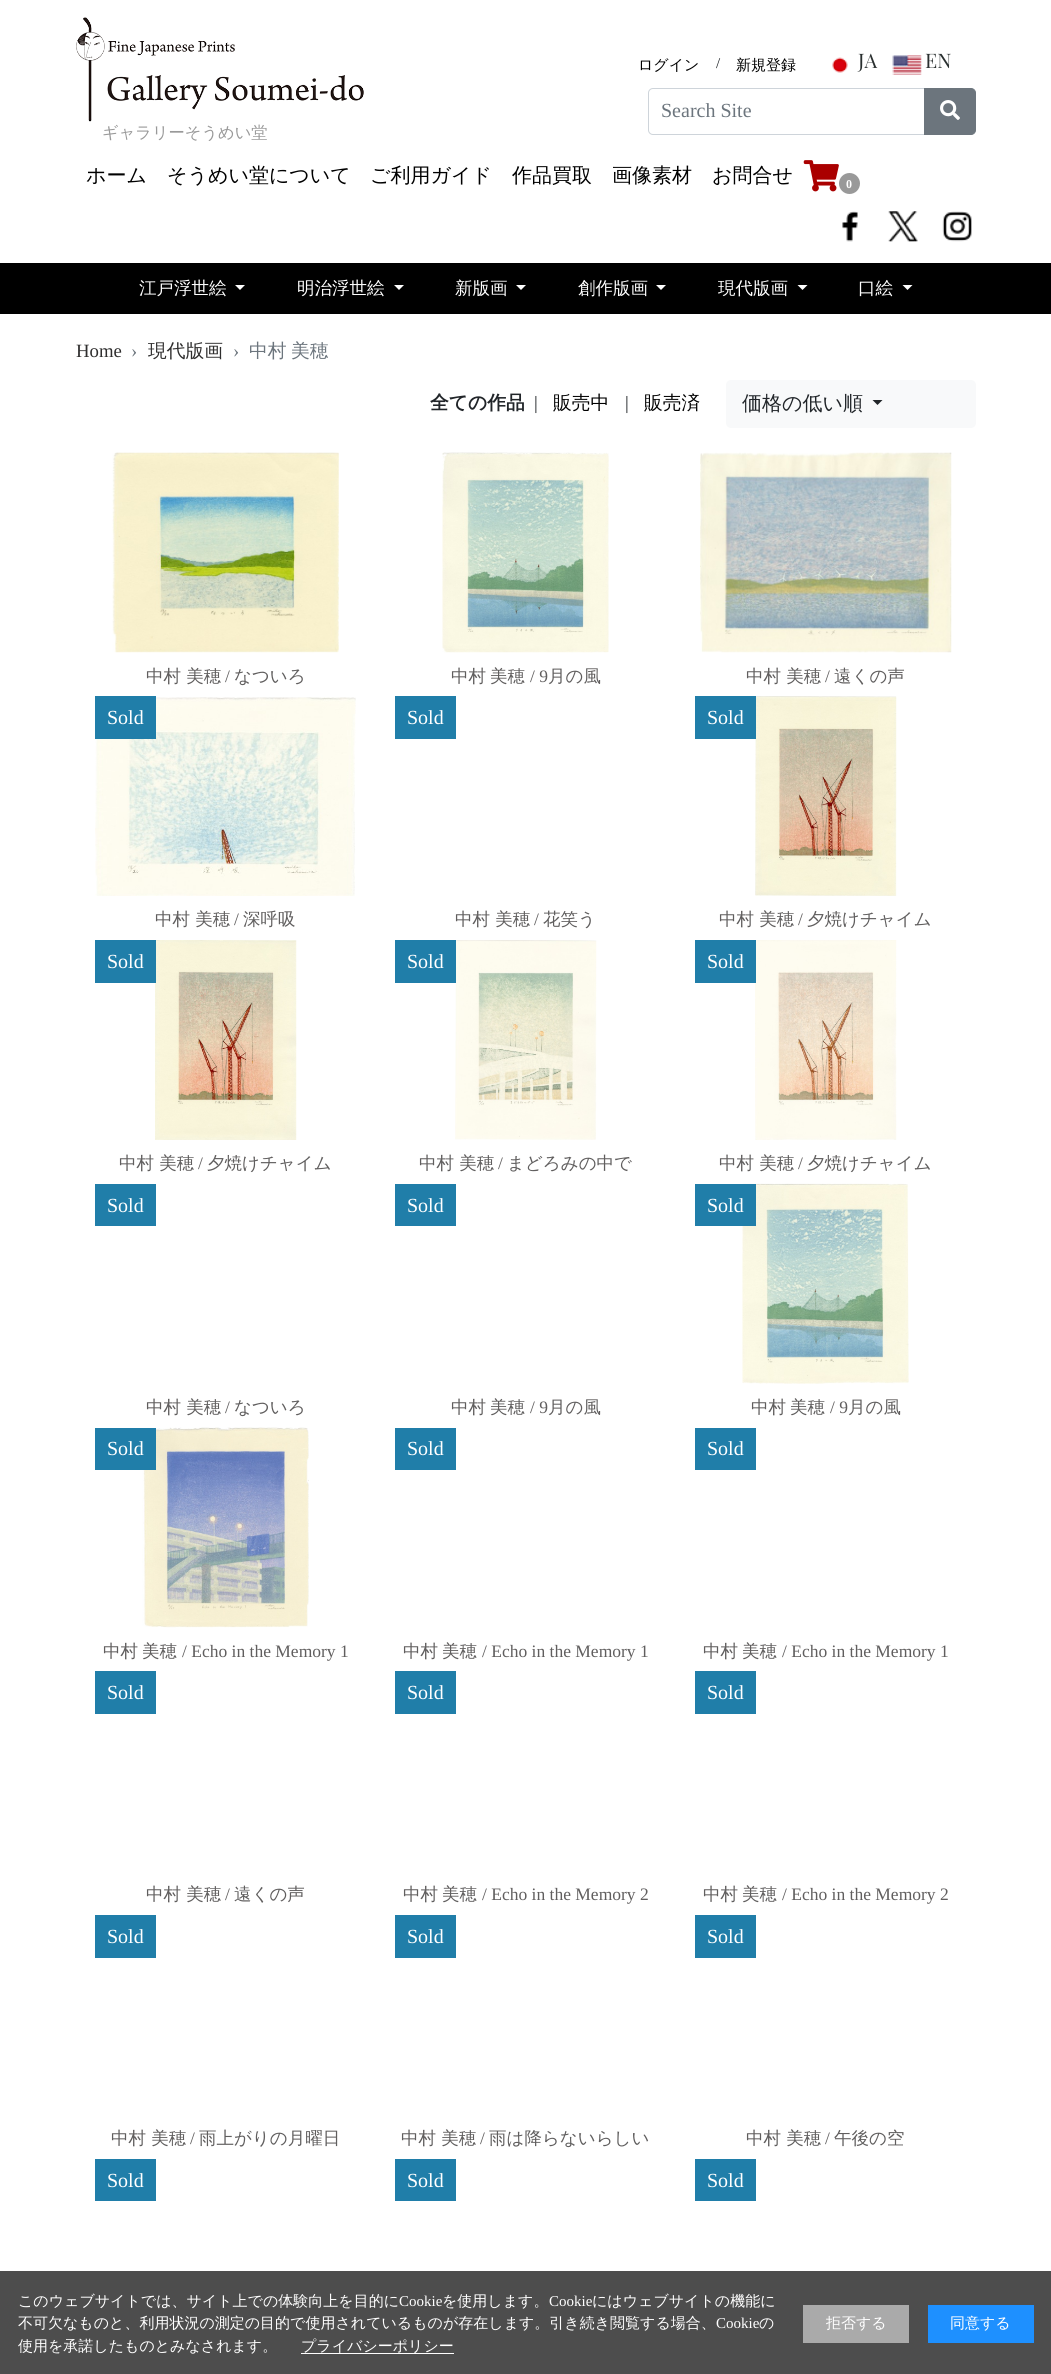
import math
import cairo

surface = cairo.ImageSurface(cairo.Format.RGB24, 1051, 2374)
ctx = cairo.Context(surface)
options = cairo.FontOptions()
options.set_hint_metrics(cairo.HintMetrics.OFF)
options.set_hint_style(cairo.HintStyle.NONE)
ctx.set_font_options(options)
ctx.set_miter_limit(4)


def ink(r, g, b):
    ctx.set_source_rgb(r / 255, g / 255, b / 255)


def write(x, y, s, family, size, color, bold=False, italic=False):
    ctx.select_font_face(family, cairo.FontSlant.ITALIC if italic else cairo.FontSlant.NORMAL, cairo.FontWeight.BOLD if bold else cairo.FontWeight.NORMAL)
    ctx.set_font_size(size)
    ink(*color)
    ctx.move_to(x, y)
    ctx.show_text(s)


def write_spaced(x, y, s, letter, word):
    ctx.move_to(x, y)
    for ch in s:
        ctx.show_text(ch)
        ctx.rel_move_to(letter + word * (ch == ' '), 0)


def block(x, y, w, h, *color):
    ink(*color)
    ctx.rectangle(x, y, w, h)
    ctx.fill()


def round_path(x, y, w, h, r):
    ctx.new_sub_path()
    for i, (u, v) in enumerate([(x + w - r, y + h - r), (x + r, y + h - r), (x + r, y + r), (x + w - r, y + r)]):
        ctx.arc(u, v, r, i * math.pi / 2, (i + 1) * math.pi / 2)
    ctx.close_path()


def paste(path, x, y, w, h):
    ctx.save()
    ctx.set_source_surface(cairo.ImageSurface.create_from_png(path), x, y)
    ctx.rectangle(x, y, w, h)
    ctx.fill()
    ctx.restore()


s1 = dict(family="WenQuanYi Zen Hei Medium", size=15, color=(0, 0, 0))
s2 = dict(family="Liberation Serif", size=15, color=(33, 37, 41))
s3 = dict(family="Playfair Display", size=20, color=(41, 47, 47))
s4 = dict(family="Liberation Serif", size=20, color=(108, 117, 125))
s5 = dict(family="WenQuanYi Zen Hei Medium", size=20, color=(0, 0, 0))
s6 = dict(family="Liberation Serif", size=12, color=(255, 255, 255), bold=True)
s7 = dict(family="WenQuanYi Zen Hei Medium", size=16.25, color=(153, 153, 153))
s8 = dict(family="WenQuanYi Zen Hei Medium", size=17.5, color=(255, 255, 255))
s9 = dict(family="Liberation Serif", size=18.75, color=(47, 46, 46))
s10 = dict(family="Liberation Serif", size=18.75, color=(108, 117, 125))
s11 = dict(family="WenQuanYi Zen Hei Medium", size=18.75, color=(47, 46, 46))
s12 = dict(family="WenQuanYi Zen Hei", size=18.75, color=(33, 37, 41), bold=True)
s13 = dict(family="Liberation Serif", size=18.75, color=(33, 37, 41))
s14 = dict(family="WenQuanYi Zen Hei Medium", size=18.75, color=(0, 0, 0))
s15 = dict(family="WenQuanYi Zen Hei Medium", size=20, color=(33, 37, 41))
s16 = dict(family="WenQuanYi Zen Hei Medium", size=17.5, color=(96, 94, 94))
s17 = dict(family="Liberation Serif", size=17.5, color=(96, 94, 94))
s18 = dict(family="Liberation Serif", size=20, color=(255, 255, 255))
s19 = dict(family="WenQuanYi Zen Hei Medium", size=15, color=(255, 255, 255))
s20 = dict(family="Liberation Serif", size=15, color=(255, 255, 255))

ink(255, 255, 255)
ctx.paint()
block(0, 2271, 1051, 103, 77, 77, 77)
write(638, 70, "ログイン", **s1)
write(716, 68, "/", **s2)
write(736, 70, "新規登録", **s1)
paste("pic1.png", 832, 57, 16, 16)
write(858, 68, "JA", **s3)
paste("pic2.png", 892, 55, 30, 20)
write(925, 68, "EN", **s3)
ctx.new_path()
ctx.move_to(653, 88.5)
ctx.line_to(924.5, 88.5)
ctx.line_to(924.5, 134.5)
ctx.line_to(653, 134.5)
ctx.curve_to(650.5, 134.5, 648.5, 132.5, 648.5, 130)
ctx.line_to(648.5, 93)
ctx.curve_to(648.5, 90.5, 650.5, 88.5, 653, 88.5)
ctx.close_path()
ink(206, 212, 218)
ctx.set_line_width(1)
ctx.stroke()
write(661, 117, "Search Site", **s4)
ctx.new_path()
ctx.move_to(924.5, 88.5)
ctx.line_to(971, 88.5)
ctx.curve_to(973.5, 88.5, 975.5, 90.5, 975.5, 93)
ctx.line_to(975.5, 130)
ctx.curve_to(975.5, 132.5, 973.5, 134.5, 971, 134.5)
ctx.line_to(924.5, 134.5)
ctx.close_path()
ctx.fill_preserve()
ctx.stroke()
paste("pic3.png", 940, 100, 20, 20)
write(86, 182, "ホーム", **s5)
write(167, 182, "そうめい堂について", **s5)
write(370, 182, "ご利用ガイド", **s5)
write(512, 182, "作品買取", **s5)
write(612, 182, "画像素材", **s5)
write(712, 182, "お問合せ", **s5)
paste("pic4.png", 803, 160, 36, 32)
ink(153, 153, 153)
ctx.arc(849.5, 183.5, 10.5, 0, 2 * math.pi)
ctx.fill()
write(846, 188, "0", **s6)
paste("pic5.png", 842, 211, 16, 31)
paste("pic6.png", 888, 211, 30, 31)
paste("pic7.png", 942, 211, 30, 31)
paste("pic8.png", 76, 17, 288, 105)
write(102, 138, "ギャラリーそうめい堂", **s7)
block(0, 263, 1051, 51, 0, 0, 0)
write(139, 294, "江戸浮世絵", **s8)
ctx.new_path()
ctx.move_to(235, 285)
ctx.line_to(245, 285)
ctx.line_to(240, 290)
ctx.close_path()
ctx.fill()
write(297, 294, "明治浮世絵", **s8)
ctx.new_path()
ctx.move_to(394, 285)
ctx.line_to(404, 285)
ctx.line_to(399, 290)
ctx.close_path()
ctx.fill()
write(455, 294, "新版画", **s8)
ctx.new_path()
ctx.move_to(516, 285)
ctx.line_to(526, 285)
ctx.line_to(521, 290)
ctx.close_path()
ctx.fill()
write(578, 294, "創作版画", **s8)
ctx.new_path()
ctx.move_to(656, 285)
ctx.line_to(666, 285)
ctx.line_to(661, 290)
ctx.close_path()
ctx.fill()
write(718, 294, "現代版画", **s8)
ctx.new_path()
ctx.move_to(797.5, 285)
ctx.line_to(807.5, 285)
ctx.line_to(802.5, 290)
ctx.close_path()
ctx.fill()
write(858, 294, "口絵", **s8)
ctx.new_path()
ctx.move_to(902.5, 285)
ctx.line_to(912.5, 285)
ctx.line_to(907.5, 290)
ctx.close_path()
ctx.fill()
write(76, 357, "Home", **s9)
write(131, 357, "›", **s10)
write(148, 357, "現代版画", **s11)
write(233, 357, "›", **s10)
ctx.select_font_face("WenQuanYi Zen Hei Medium")
write_spaced(249, 357, "中村 美穂", 0, -1)
write(430, 409, "全ての作品", **s12)
write(534, 409, "|", **s13)
write(553, 409, "販売中", **s14)
write(625, 409, "|", **s13)
write(644, 409, "販売済", **s14)
ink(248, 249, 250)
round_path(726, 380, 250, 48, 5)
ctx.fill()
write(742, 410, "価格の低い順", **s15)
ctx.new_path()
ctx.move_to(872.5, 400)
ctx.line_to(882.5, 400)
ctx.line_to(877.5, 405)
ctx.close_path()
ctx.fill()
paste("pic9.png", 112, 452, 227, 201)
write(146, 682, "中村 美穂", **s16)
write(225, 682, "/", **s17)
write(234, 682, "なついろ", **s16)
paste("pic10.png", 442, 452, 167, 201)
write(451, 682, "中村", **s16)
write(490, 682, "美穂", **s16)
write(530, 682, "/ 9", **s17)
write(548, 682, "月の風", **s16)
paste("pic11.png", 700, 452, 252, 201)
write(746, 682, "中村 美穂", **s16)
write(825, 682, "/", **s17)
write(834, 682, "遠くの声", **s16)
paste("pic12.png", 95, 697, 261, 199)
block(95, 696, 61, 43, 32, 126, 169)
write(107, 724, "Sold", **s18)
write(155, 925, "中村 美穂", **s16)
write(234, 925, "/", **s17)
write(243, 925, "深呼吸", **s16)
block(395, 696, 61, 43, 32, 126, 169)
write(407, 724, "Sold", **s18)
write(455, 925, "中村 美穂", **s16)
write(534, 925, "/", **s17)
write(543, 925, "花笑う", **s16)
paste("pic13.png", 755, 696, 142, 200)
block(695, 696, 61, 43, 32, 126, 169)
write(707, 724, "Sold", **s18)
write(719, 925, "中村 美穂", **s16)
write(798, 925, "/", **s17)
write(807, 925, "夕焼けチャイム", **s16)
paste("pic14.png", 155, 940, 142, 200)
block(95, 940, 61, 43, 32, 126, 169)
write(107, 968, "Sold", **s18)
write(119, 1169, "中村 美穂", **s16)
write(198, 1169, "/", **s17)
write(207, 1169, "夕焼けチャイム", **s16)
paste("pic15.png", 455, 940, 142, 200)
block(395, 940, 61, 43, 32, 126, 169)
write(407, 968, "Sold", **s18)
write(419, 1169, "中村 美穂", **s16)
write(498, 1169, "/", **s17)
write(507, 1169, "まどろみの中で", **s16)
paste("pic16.png", 755, 940, 142, 200)
block(695, 940, 61, 43, 32, 126, 169)
write(707, 968, "Sold", **s18)
write(719, 1169, "中村 美穂", **s16)
write(798, 1169, "/", **s17)
write(807, 1169, "夕焼けチャイム", **s16)
block(95, 1184, 61, 42, 32, 126, 169)
write(107, 1212, "Sold", **s18)
write(146, 1413, "中村 美穂", **s16)
write(225, 1413, "/", **s17)
write(234, 1413, "なついろ", **s16)
block(395, 1184, 61, 42, 32, 126, 169)
write(407, 1212, "Sold", **s18)
write(451, 1413, "中村", **s16)
write(490, 1413, "美穂", **s16)
write(530, 1413, "/ 9", **s17)
write(548, 1413, "月の風", **s16)
paste("pic17.png", 742, 1183, 167, 201)
block(695, 1184, 61, 42, 32, 126, 169)
write(707, 1212, "Sold", **s18)
write(751, 1413, "中村", **s16)
write(790, 1413, "美穂", **s16)
write(830, 1413, "/ 9", **s17)
write(848, 1413, "月の風", **s16)
paste("pic18.png", 142, 1427, 167, 201)
block(95, 1428, 61, 42, 32, 126, 169)
write(107, 1455, "Sold", **s18)
write(103, 1657, "中村", **s16)
write(142, 1657, "美穂", **s16)
write(182, 1657, "/ Echo in the Memory 1", **s17)
block(395, 1428, 61, 42, 32, 126, 169)
write(407, 1455, "Sold", **s18)
write(403, 1657, "中村", **s16)
write(442, 1657, "美穂", **s16)
write(482, 1657, "/ Echo in the Memory 1", **s17)
block(695, 1428, 61, 42, 32, 126, 169)
write(707, 1455, "Sold", **s18)
write(703, 1657, "中村", **s16)
write(742, 1657, "美穂", **s16)
write(782, 1657, "/ Echo in the Memory 1", **s17)
block(95, 1671, 61, 43, 32, 126, 169)
write(107, 1699, "Sold", **s18)
write(146, 1900, "中村 美穂", **s16)
write(225, 1900, "/", **s17)
write(234, 1900, "遠くの声", **s16)
block(395, 1671, 61, 43, 32, 126, 169)
write(407, 1699, "Sold", **s18)
write(403, 1900, "中村", **s16)
write(442, 1900, "美穂", **s16)
write(482, 1900, "/ Echo in the Memory 2", **s17)
block(695, 1671, 61, 43, 32, 126, 169)
write(707, 1699, "Sold", **s18)
write(703, 1900, "中村", **s16)
write(742, 1900, "美穂", **s16)
write(782, 1900, "/ Echo in the Memory 2", **s17)
block(95, 1915, 61, 43, 32, 126, 169)
write(107, 1943, "Sold", **s18)
write(111, 2144, "中村 美穂", **s16)
write(190, 2144, "/", **s17)
write(199, 2144, "雨上がりの月曜日", **s16)
block(395, 1915, 61, 43, 32, 126, 169)
write(407, 1943, "Sold", **s18)
write(401, 2144, "中村 美穂", **s16)
write(480, 2144, "/", **s17)
write(489, 2144, "雨は降らないらしい", **s16)
block(695, 1915, 61, 43, 32, 126, 169)
write(707, 1943, "Sold", **s18)
write(746, 2144, "中村 美穂", **s16)
write(825, 2144, "/", **s17)
write(834, 2144, "午後の空", **s16)
block(95, 2159, 61, 42, 32, 126, 169)
write(107, 2187, "Sold", **s18)
block(395, 2159, 61, 42, 32, 126, 169)
write(407, 2187, "Sold", **s18)
block(695, 2159, 61, 42, 32, 126, 169)
write(707, 2187, "Sold", **s18)
write(18, 2306, "このウェブサイトでは、サイト上での体験向上を目的に", **s19)
write(399, 2306, "Cookie", **s20)
write(442, 2306, "を使用します。", **s19)
write(549, 2306, "Cookie", **s20)
write(592, 2306, "にはウェブサイトの機能に", **s19)
write(18, 2328, "不可欠なものと、利用状況の測定の目的で使用されているものが存在します。引き続き閲覧する場合、", **s19)
write(716, 2328, "Cookie", **s20)
write(759, 2328, "の", **s19)
write(18, 2351, "使用を承諾したものとみなされます。", **s19)
block(301, 2353, 153, 1, 255, 255, 255)
write(301, 2351, "プライバシーポリシー", **s19)
block(803, 2305, 106, 38, 170, 170, 170)
write(826, 2328, "拒否する", **s19)
block(928, 2305, 106, 38, 30, 144, 255)
write(950, 2328, "同意する", **s19)
surface.write_to_png("screenshot.png")
